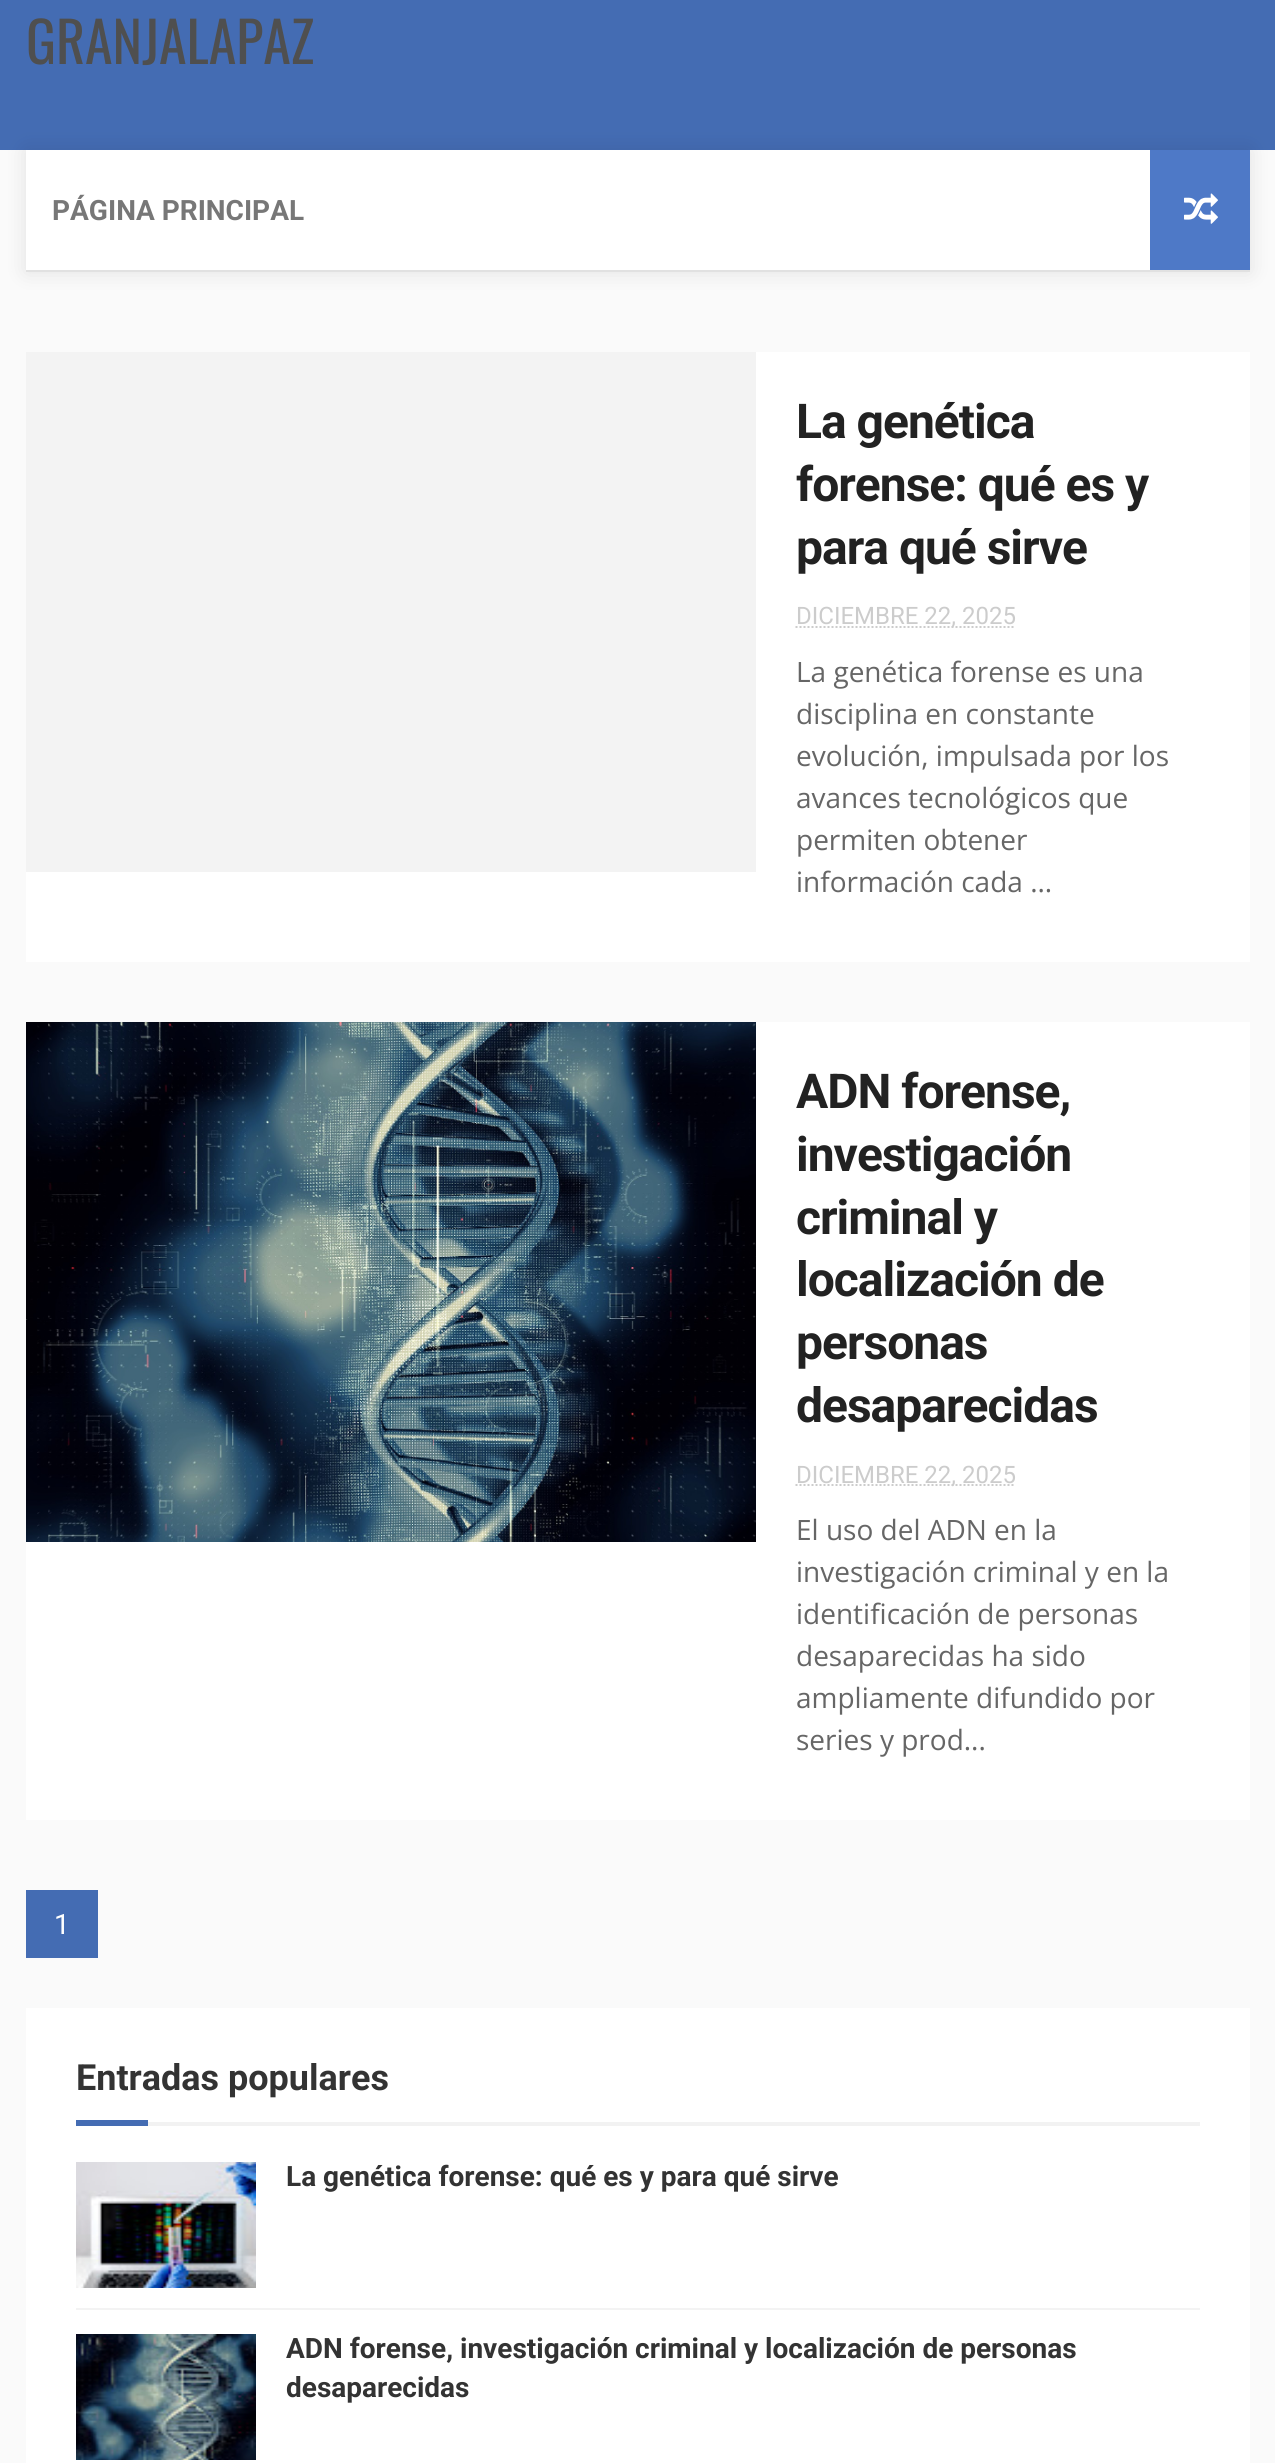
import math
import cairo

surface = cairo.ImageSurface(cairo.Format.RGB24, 1275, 2463)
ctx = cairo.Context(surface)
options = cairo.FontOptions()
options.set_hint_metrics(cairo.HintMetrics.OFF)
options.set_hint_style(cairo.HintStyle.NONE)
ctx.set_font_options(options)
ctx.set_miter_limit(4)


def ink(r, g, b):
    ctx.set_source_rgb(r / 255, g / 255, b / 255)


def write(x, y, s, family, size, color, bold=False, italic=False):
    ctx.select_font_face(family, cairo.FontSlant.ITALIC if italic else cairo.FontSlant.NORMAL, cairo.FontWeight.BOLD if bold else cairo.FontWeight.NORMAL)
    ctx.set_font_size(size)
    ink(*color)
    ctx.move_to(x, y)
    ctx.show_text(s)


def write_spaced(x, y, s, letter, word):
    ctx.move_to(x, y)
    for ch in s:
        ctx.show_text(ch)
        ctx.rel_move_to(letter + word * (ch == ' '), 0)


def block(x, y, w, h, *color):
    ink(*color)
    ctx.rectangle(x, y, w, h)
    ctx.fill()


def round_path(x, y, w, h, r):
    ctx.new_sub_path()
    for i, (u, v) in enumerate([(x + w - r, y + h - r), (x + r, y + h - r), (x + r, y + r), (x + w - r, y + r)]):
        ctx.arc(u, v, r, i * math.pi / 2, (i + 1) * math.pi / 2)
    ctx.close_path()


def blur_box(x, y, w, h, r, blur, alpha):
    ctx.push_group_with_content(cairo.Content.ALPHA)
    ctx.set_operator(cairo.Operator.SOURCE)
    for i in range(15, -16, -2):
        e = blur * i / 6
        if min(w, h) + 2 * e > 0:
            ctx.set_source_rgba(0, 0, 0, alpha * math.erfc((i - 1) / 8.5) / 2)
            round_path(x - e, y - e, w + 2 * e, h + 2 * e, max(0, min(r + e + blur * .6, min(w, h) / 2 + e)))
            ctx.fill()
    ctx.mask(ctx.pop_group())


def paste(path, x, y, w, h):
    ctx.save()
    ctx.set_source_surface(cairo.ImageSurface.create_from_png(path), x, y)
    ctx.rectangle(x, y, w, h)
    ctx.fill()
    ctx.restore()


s1 = dict(family="Oswald", size=56, color=(79, 79, 79))
s2 = dict(family="Roboto", size=28, color=(119, 119, 119), bold=True)
s3 = dict(family="Roboto", size=24, color=(204, 204, 204))
s4 = dict(family="Open Sans", size=28, color=(102, 102, 102))
s5 = dict(family="Roboto", size=28, color=(255, 255, 255))
s6 = dict(family="Roboto", size=36, color=(51, 51, 51), bold=True)
s7 = dict(family="Roboto", size=28, color=(51, 51, 51), bold=True)

ink(250, 250, 250)
ctx.paint()
block(0, 0, 1275, 150, 68, 108, 179)
write(26, 64, "GRANJALAPAZ", **s1)
ink(0, 0, 0)
blur_box(26, 150, 1224, 122, 0, 10, 0.1)
block(26, 270, 1224, 2, 225, 225, 225)
block(26, 150, 1124, 120, 255, 255, 255)
write(52, 220, "PÁGINA PRINCIPAL", **s2)
block(1150, 150, 100, 120, 78, 121, 199)
paste("pic1.png", 1184, 193, 34, 31)
block(26, 352, 1224, 610, 255, 255, 255)
block(26, 352, 730, 520, 243, 243, 243)
ctx.set_font_size(48)
ink(34, 34, 34)
write_spaced(796, 438, "La genética", -1, 0)
write_spaced(796, 501, "forense: qué es y", -1, 0)
write_spaced(796, 564, "para qué sirve", -1, 0)
ctx.new_path()
ctx.move_to(795.5, 627)
ctx.line_to(1015.5, 627)
ink(204, 204, 204)
ctx.set_dash([2, 2])
ctx.stroke()
write(796, 624, "DICIEMBRE 22, 2025", **s3)
write(796, 682, "La genética forense es una", **s4)
write(796, 724, "disciplina en constante", **s4)
write(796, 766, "evolución, impulsada por los", **s4)
write(796, 808, "avances tecnológicos que", **s4)
write(796, 850, "permiten obtener", **s4)
write(796, 892, "información cada ...", **s4)
block(26, 1022, 1224, 798, 255, 255, 255)
paste("pic2.png", 26, 1022, 730, 520)
ctx.select_font_face("Roboto", cairo.FontSlant.NORMAL, cairo.FontWeight.BOLD)
ctx.set_font_size(48)
ink(34, 34, 34)
write_spaced(796, 1108, "ADN forense,", -1, 0)
write_spaced(796, 1171, "investigación", -1, 0)
write_spaced(796, 1234, "criminal y", -1, 0)
write_spaced(796, 1296, "localización de", -1, 0)
write_spaced(796, 1359, "personas", -1, 0)
write_spaced(796, 1422, "desaparecidas", -1, 0)
ctx.new_path()
ctx.move_to(795.5, 1485)
ctx.line_to(1015.5, 1485)
ink(204, 204, 204)
ctx.stroke()
write(796, 1483, "DICIEMBRE 22, 2025", **s3)
write(796, 1540, "El uso del ADN en la", **s4)
write(796, 1582, "investigación criminal y en la", **s4)
write(796, 1624, "identificación de personas", **s4)
write(796, 1666, "desaparecidas ha sido", **s4)
write(796, 1708, "ampliamente difundido por", **s4)
write(796, 1750, "series y prod...", **s4)
block(26, 1890, 72, 68, 68, 108, 179)
write(54, 1934, "1", **s5)
block(26, 2008, 1224, 455, 255, 255, 255)
block(148, 2122, 1052, 4, 242, 242, 242)
write(76, 2090, "Entradas populares", **s6)
block(76, 2120, 72, 6, 68, 108, 179)
paste("pic3.png", 76, 2162, 180, 126)
write(286, 2186, "La genética forense: qué es y para qué sirve", **s7)
block(76, 2308, 1124, 2, 243, 243, 243)
paste("pic4.png", 76, 2334, 180, 126)
write(286, 2358, "ADN forense, investigación criminal y localización de personas", **s7)
write(286, 2397, "desaparecidas", **s7)
surface.write_to_png("screenshot.png")
